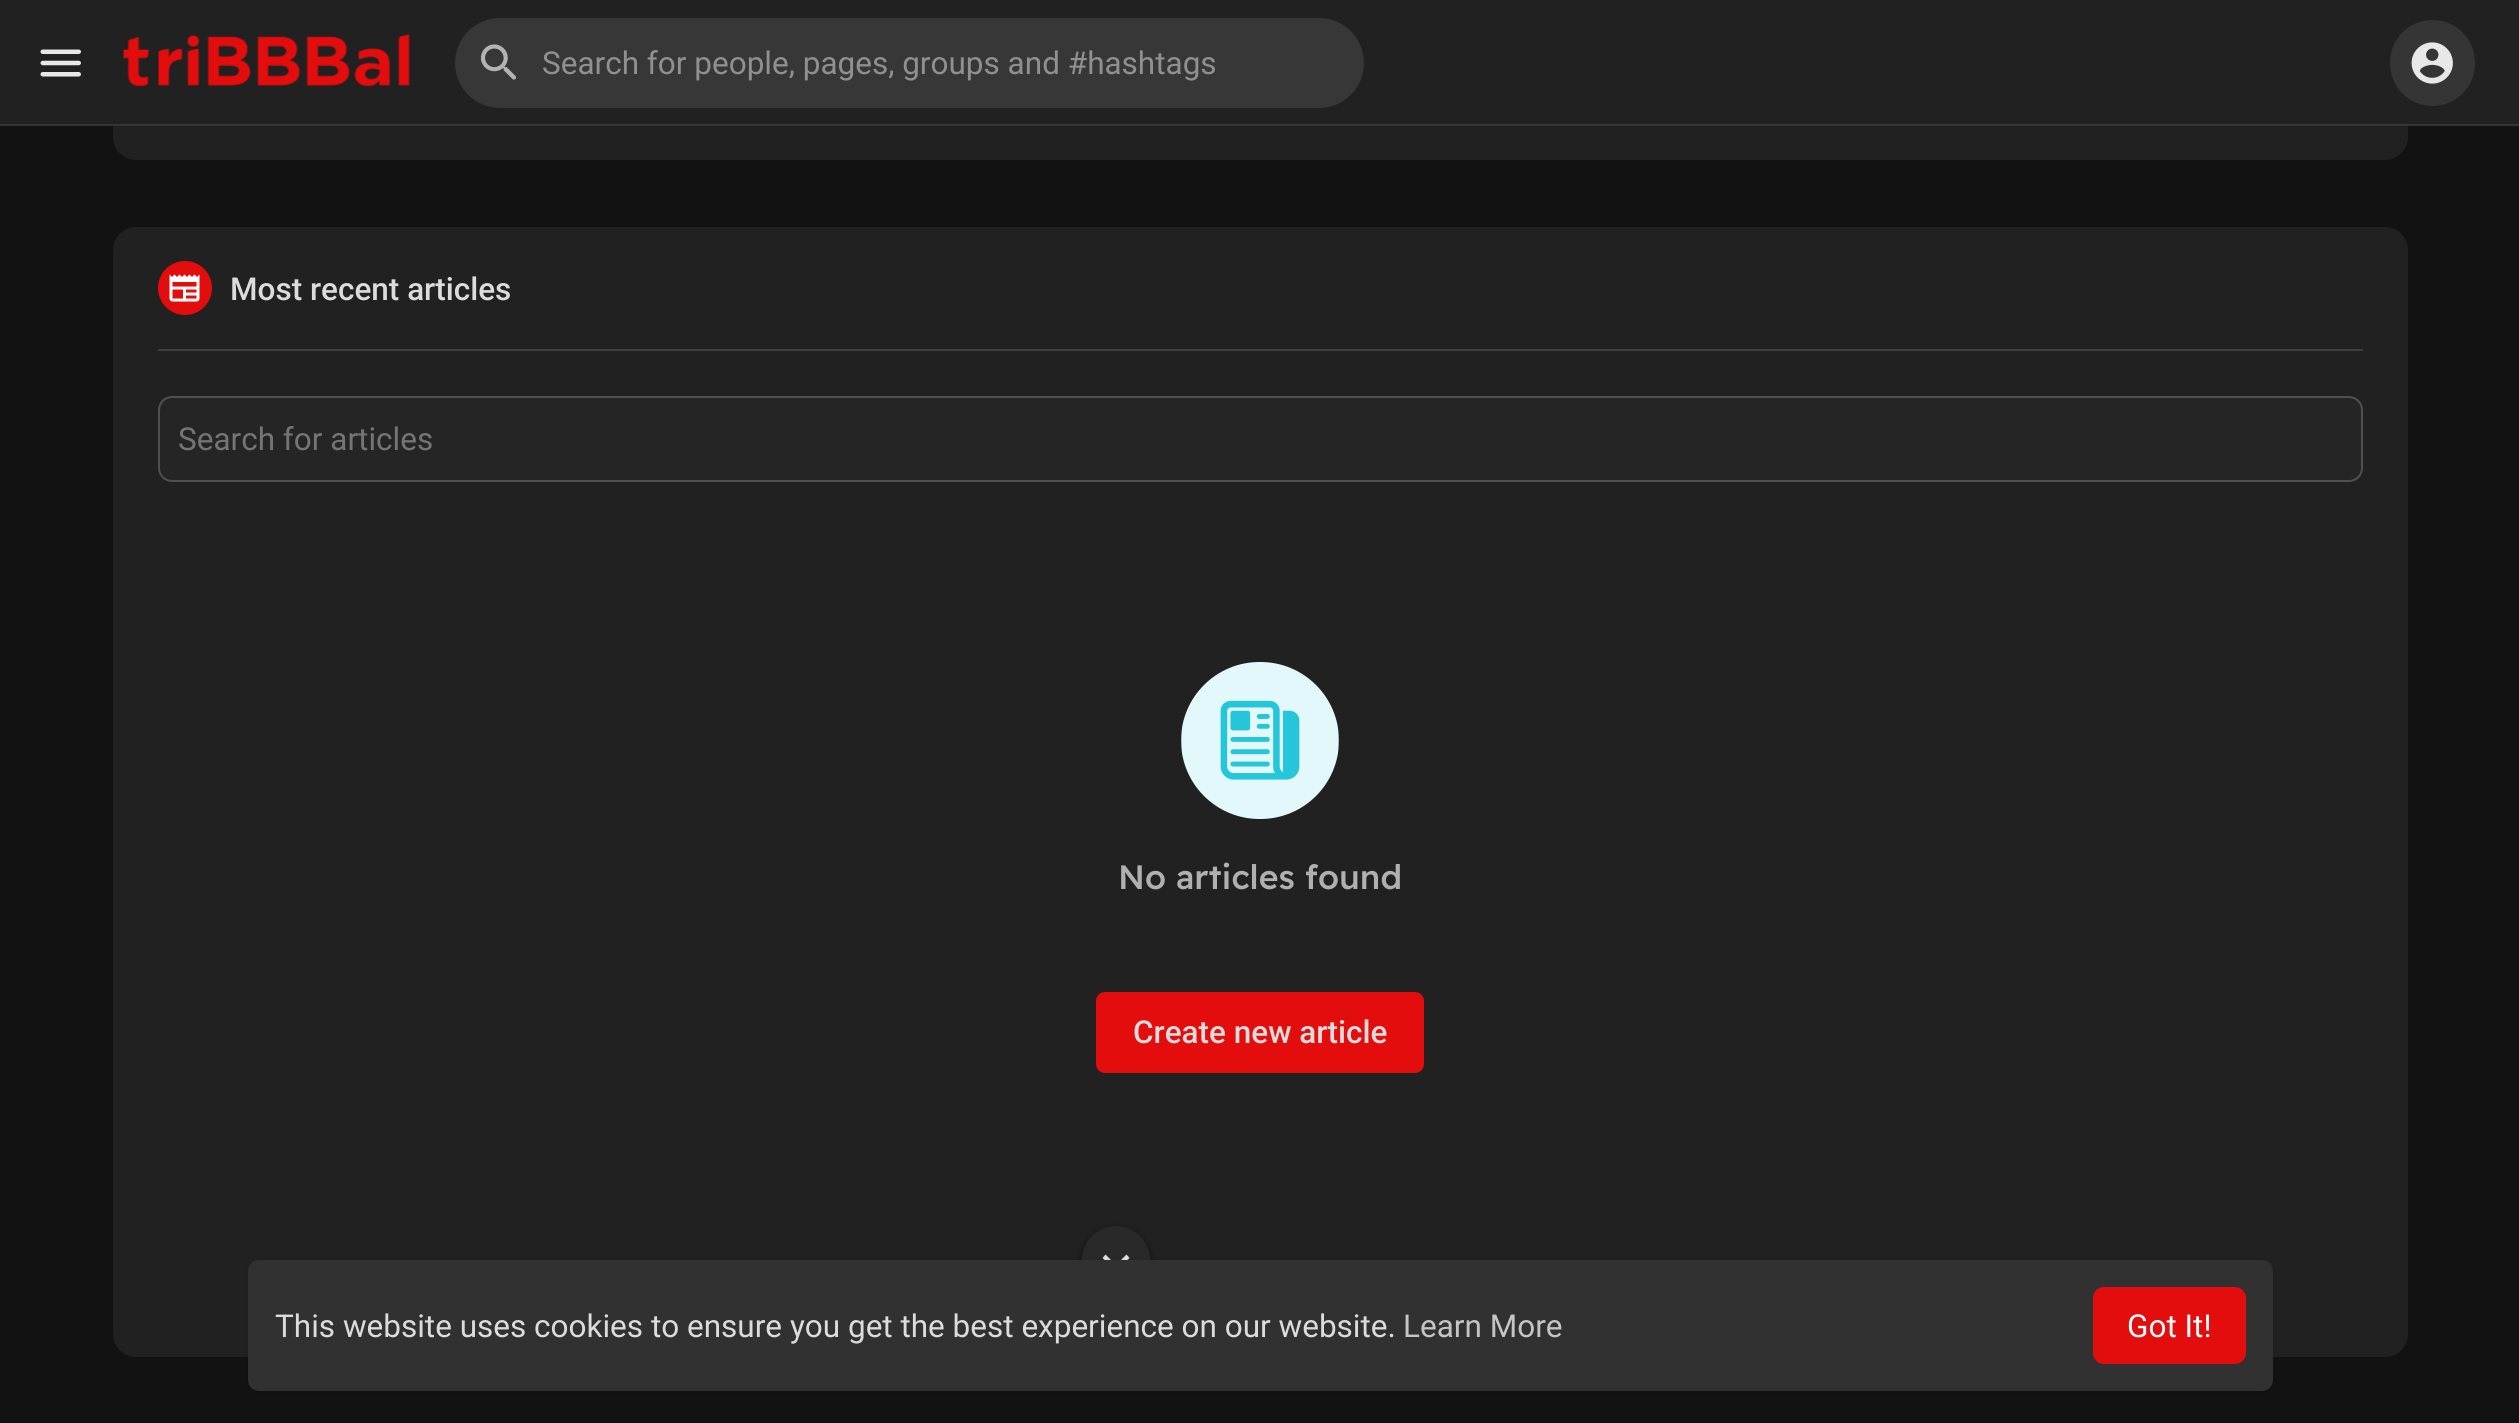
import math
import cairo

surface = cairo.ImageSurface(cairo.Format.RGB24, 2519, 1423)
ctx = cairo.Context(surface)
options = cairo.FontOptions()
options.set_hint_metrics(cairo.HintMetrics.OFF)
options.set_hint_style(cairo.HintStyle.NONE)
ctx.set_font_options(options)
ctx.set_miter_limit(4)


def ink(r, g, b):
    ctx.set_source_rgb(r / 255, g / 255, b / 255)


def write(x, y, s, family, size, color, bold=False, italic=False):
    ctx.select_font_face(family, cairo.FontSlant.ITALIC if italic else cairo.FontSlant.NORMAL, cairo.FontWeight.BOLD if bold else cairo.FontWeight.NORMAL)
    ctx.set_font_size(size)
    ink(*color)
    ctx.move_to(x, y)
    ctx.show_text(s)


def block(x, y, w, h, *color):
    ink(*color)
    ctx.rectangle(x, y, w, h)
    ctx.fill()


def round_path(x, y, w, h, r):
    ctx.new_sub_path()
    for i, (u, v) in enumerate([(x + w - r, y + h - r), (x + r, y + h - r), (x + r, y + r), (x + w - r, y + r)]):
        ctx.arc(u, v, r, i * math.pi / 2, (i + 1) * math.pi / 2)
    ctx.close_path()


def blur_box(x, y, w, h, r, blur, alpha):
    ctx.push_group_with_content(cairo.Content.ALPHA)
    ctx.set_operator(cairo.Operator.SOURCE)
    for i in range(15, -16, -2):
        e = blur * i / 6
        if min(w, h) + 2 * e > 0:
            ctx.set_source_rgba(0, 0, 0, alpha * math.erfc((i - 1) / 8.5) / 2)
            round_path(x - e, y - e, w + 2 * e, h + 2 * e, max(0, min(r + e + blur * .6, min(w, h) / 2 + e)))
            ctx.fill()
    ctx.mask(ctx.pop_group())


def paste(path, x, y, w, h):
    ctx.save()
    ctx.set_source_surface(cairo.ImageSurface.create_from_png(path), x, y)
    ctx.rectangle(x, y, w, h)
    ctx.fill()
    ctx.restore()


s1 = dict(family="Roboto", size=31.5, color=(144, 144, 144))
s2 = dict(family="Roboto Medium", size=31.5, color=(220, 220, 220))
s3 = dict(family="Roboto", size=31.5, color=(117, 117, 117))
s4 = dict(family="Readex Pro Medium", size=33.75, color=(176, 176, 176))
s5 = dict(family="Roboto", size=31.5, color=(220, 220, 220))
s6 = dict(family="Roboto", size=31.5, color=(197, 197, 197))
s7 = dict(family="Roboto", size=31.5, color=(255, 255, 255))

ink(18, 18, 18)
ctx.paint()
ink(33, 33, 33)
round_path(113, -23, 2295, 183, 23)
ctx.fill()
block(0, 0, 2519, 126, 33, 33, 33)
paste("pic1.png", 40, 49, 41, 28)
paste("pic2.png", 123, 33, 287, 54)
ink(55, 55, 55)
round_path(455, 18, 909, 90, 45)
ctx.fill()
paste("pic3.png", 480, 44, 37, 36)
write(542, 74, "Search for people, pages, groups and #hashtags", **s1)
paste("pic4.png", 0, 124, 2519, 2)
ink(53, 53, 53)
round_path(2390, 20, 85, 86, 42.5)
ctx.fill()
paste("pic5.png", 2411, 42, 42, 42)
ink(33, 33, 33)
round_path(113, 227, 2295, 1130, 23)
ctx.fill()
block(158, 349, 2205, 2, 63, 63, 63)
ink(228, 13, 13)
ctx.arc(185, 288, 27, 0, 2 * math.pi)
ctx.fill()
paste("pic6.png", 169, 274, 31, 28)
write(230, 300, "Most recent articles", **s2)
ink(37, 37, 37)
round_path(159, 397, 2203, 84, 13)
ctx.fill_preserve()
ink(80, 80, 80)
ctx.stroke()
write(178, 450, "Search for articles", **s3)
paste("pic7.png", 1181, 662, 158, 157)
write(1118, 889, "No articles found", **s4)
ink(228, 13, 13)
round_path(1096, 992, 328, 81, 9)
ctx.fill()
write(1133, 1043, "Create new article", **s2)
ink(0, 0, 0)
blur_box(1082, 1229, 68, 67, 33.5, 3.5, 0.6)
ink(41, 41, 41)
ctx.arc(1116, 1260, 34, 0, 2 * math.pi)
ctx.fill()
ink(224, 224, 224)
ctx.new_path()
ctx.move_to(1105.5, 1254.5)
ctx.line_to(1116, 1265)
ctx.line_to(1126.5, 1254.5)
ctx.line_to(1129.5, 1258)
ctx.line_to(1116, 1271)
ctx.line_to(1102.5, 1258)
ctx.close_path()
ctx.fill()
ink(0, 0, 0)
blur_box(248, 1262, 2025, 131, 11, 3.5, 0.1)
ink(49, 49, 49)
round_path(248, 1260, 2025, 131, 11)
ctx.fill()
write(275, 1337, "This website uses cookies to ensure you get the best experience on our website.", **s5)
write(1403, 1337, "Learn More", **s6)
ink(228, 13, 13)
round_path(2093, 1287, 153, 77, 11)
ctx.fill()
write(2127, 1337, "Got It!", **s7)
surface.write_to_png("screenshot.png")
